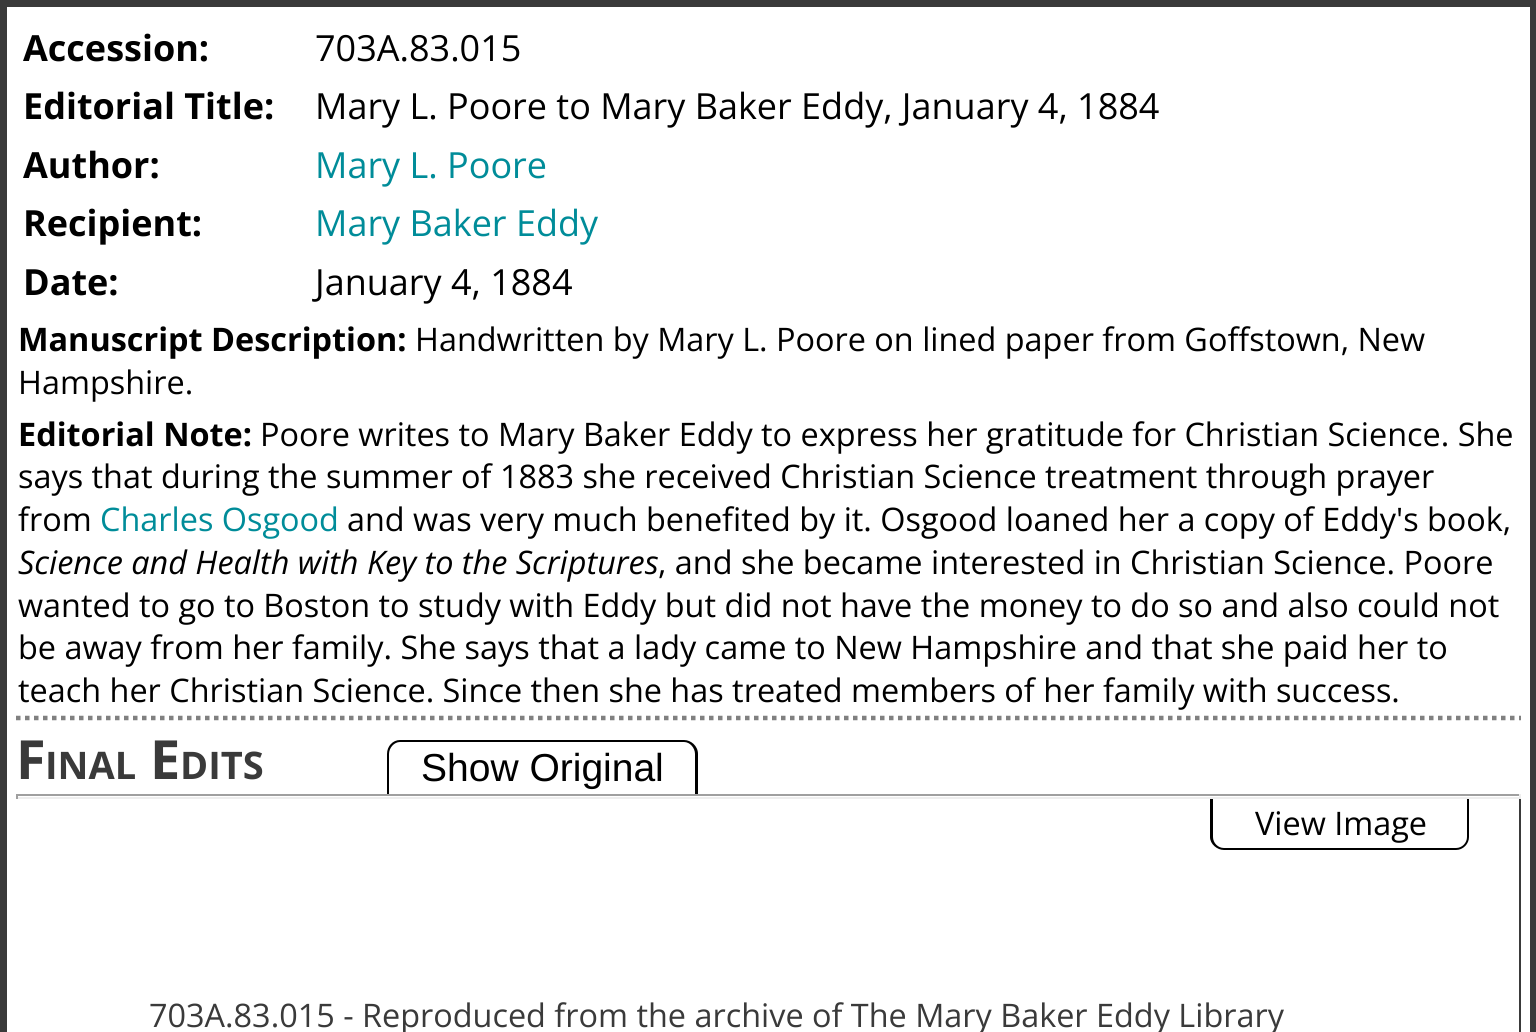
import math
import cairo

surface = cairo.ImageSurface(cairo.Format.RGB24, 1536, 1032)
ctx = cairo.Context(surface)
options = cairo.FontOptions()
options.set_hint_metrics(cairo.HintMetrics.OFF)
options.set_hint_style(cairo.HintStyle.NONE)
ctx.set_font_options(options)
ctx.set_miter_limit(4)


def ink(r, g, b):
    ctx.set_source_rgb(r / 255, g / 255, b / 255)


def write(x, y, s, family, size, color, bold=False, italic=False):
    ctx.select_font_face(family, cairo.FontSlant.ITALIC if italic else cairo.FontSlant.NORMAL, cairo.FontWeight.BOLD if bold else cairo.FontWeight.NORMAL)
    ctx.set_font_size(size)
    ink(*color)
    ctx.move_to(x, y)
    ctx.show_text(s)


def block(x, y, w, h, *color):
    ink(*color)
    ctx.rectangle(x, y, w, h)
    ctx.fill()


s1 = dict(family="Open Sans", size=36, color=(0, 0, 0), bold=True)
s2 = dict(family="Open Sans", size=36, color=(0, 0, 0))
s3 = dict(family="Open Sans", size=36, color=(0, 140, 153))
s4 = dict(family="Open Sans", size=32.4, color=(0, 0, 0), bold=True)
s5 = dict(family="Open Sans", size=32.4, color=(0, 0, 0))
s6 = dict(family="Open Sans", size=32.4, color=(0, 140, 153))
s7 = dict(family="Open Sans", size=32.4, color=(0, 0, 0), italic=True)
s8 = dict(family="Open Sans", size=54, color=(58, 58, 58), bold=True)
s9 = dict(family="Open Sans", size=38, color=(58, 58, 58), bold=True)
s10 = dict(family="Liberation Sans", size=39, color=(0, 0, 0))
s11 = dict(family="Open Sans", size=32.4, color=(58, 58, 58))

ink(255, 255, 255)
ctx.paint()
ctx.rectangle(3.5, 3.5, 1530, 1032)
ink(58, 58, 58)
ctx.set_line_width(7)
ctx.stroke()
ctx.new_path()
ctx.move_to(16, 718)
ctx.line_to(1521, 718)
ink(128, 128, 128)
ctx.set_line_width(4.5)
ctx.set_dash([4.5, 4.5])
ctx.stroke()
write(23, 61, "Accession:", **s1)
write(315, 61, "703A.83.015", **s2)
write(23, 119, "Editorial Title:", **s1)
write(315, 119, "Mary L. Poore to Mary Baker Eddy, January 4, 1884", **s2)
write(23, 178, "Author:", **s1)
write(315, 178, "Mary L. Poore", **s3)
write(23, 236, "Recipient:", **s1)
write(315, 236, "Mary Baker Eddy", **s3)
write(23, 295, "Date:", **s1)
write(315, 295, "January 4, 1884", **s2)
write(18, 351, "Manuscript Description:", **s4)
write(415, 351, "Handwritten by Mary L. Poore on lined paper from Goffstown, New", **s5)
write(18, 394, "Hampshire.", **s5)
write(18, 446, "Editorial Note:", **s4)
write(260, 446, "Poore writes to Mary Baker Eddy to express her gratitude for Christian Science. She", **s5)
write(18, 488, "says that during the summer of 1883 she received Christian Science treatment through prayer", **s5)
write(18, 531, "from", **s5)
write(100, 531, "Charles Osgood", **s6)
write(347, 531, "and was very much benefited by it. Osgood loaned her a copy of Eddy's book,", **s5)
write(18, 574, "Science and Health with Key to the Scriptures", **s7)
write(658, 574, ", and she became interested in Christian Science. Poore", **s5)
write(18, 617, "wanted to go to Boston to study with Eddy but did not have the money to do so and also could not", **s5)
write(18, 659, "be away from her family. She says that a lady came to New Hampshire and that she paid her to", **s5)
write(18, 702, "teach her Christian Science. Since then she has treated members of her family with success.", **s5)
write(16, 779, "F", **s8)
write(45, 779, "INAL", **s9)
write(150, 779, "E", **s8)
write(180, 779, "DITS", **s9)
ink(0, 0, 0)
ctx.set_fill_rule(cairo.FillRule.EVEN_ODD)
ctx.new_path()
ctx.move_to(400, 740)
ctx.line_to(684, 740)
ctx.curve_to(691, 740, 698, 746, 698, 754)
ctx.line_to(698, 794)
ctx.line_to(387, 794)
ctx.line_to(387, 754)
ctx.curve_to(387, 746, 393, 740, 400, 740)
ctx.close_path()
ctx.move_to(400, 742)
ctx.line_to(684, 742)
ctx.curve_to(690, 742, 695, 748, 695, 754)
ctx.line_to(695, 794)
ctx.line_to(389, 794)
ctx.line_to(389, 754)
ctx.curve_to(389, 748, 394, 742, 400, 742)
ctx.close_path()
ctx.fill()
write(421, 781, "Show Original", **s10)
block(16, 794, 1505, 2, 159, 159, 159)
block(1519, 794, 2, 5, 238, 238, 238)
block(16, 797, 1505, 2, 238, 238, 238)
block(16, 794, 2, 5, 159, 159, 159)
ink(0, 0, 0)
ctx.new_path()
ctx.move_to(1210, 799)
ctx.line_to(1469, 799)
ctx.line_to(1469, 837)
ctx.curve_to(1469, 844, 1463, 850, 1456, 850)
ctx.line_to(1224, 850)
ctx.curve_to(1217, 850, 1210, 844, 1210, 837)
ctx.close_path()
ctx.move_to(1213, 799)
ctx.line_to(1467, 799)
ctx.line_to(1467, 837)
ctx.curve_to(1467, 843, 1462, 848, 1456, 848)
ctx.line_to(1224, 848)
ctx.curve_to(1218, 848, 1213, 843, 1213, 837)
ctx.close_path()
ctx.fill()
write(1255, 835, "View Image", **s5)
write(149, 1027, "703A.83.015 - Reproduced from the archive of The Mary Baker Eddy Library", **s11)
block(1519, 799, 2, 233, 58, 58, 58)
surface.write_to_png("screenshot.png")
